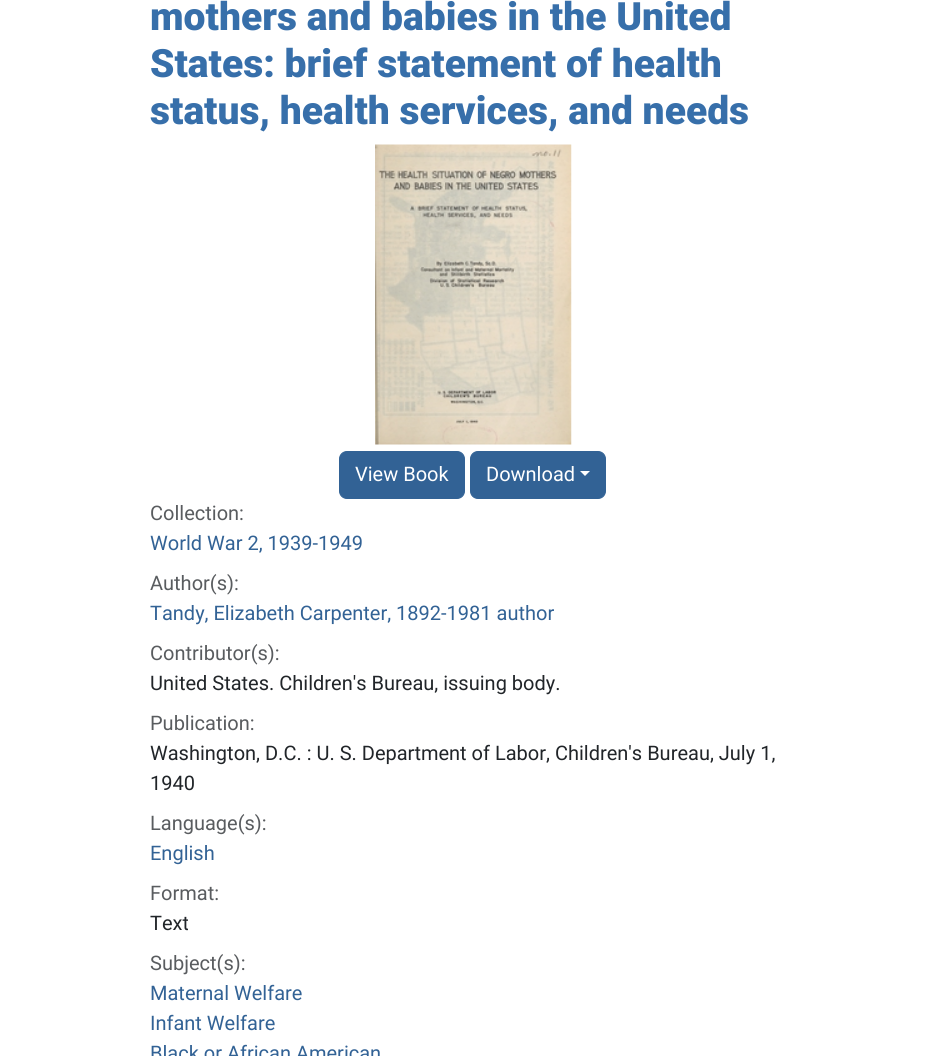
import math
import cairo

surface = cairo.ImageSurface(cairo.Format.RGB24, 944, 1056)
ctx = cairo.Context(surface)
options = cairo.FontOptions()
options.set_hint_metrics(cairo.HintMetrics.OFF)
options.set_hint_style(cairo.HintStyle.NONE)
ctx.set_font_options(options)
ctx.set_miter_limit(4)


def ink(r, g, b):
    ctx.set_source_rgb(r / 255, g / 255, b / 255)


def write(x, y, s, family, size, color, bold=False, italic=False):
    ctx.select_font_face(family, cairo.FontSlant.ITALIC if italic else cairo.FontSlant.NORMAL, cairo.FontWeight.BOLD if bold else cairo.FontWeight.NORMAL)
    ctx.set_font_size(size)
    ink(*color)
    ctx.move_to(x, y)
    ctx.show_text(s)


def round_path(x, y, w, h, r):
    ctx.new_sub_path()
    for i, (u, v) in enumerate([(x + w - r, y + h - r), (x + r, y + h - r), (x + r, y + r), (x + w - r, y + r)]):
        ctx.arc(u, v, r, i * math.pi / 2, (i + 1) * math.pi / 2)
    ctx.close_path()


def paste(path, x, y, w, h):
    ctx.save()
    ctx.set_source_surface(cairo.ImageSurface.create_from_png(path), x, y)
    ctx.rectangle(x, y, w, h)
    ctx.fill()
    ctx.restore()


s1 = dict(family="Roboto Black", size=39, color=(55, 111, 170))
s2 = dict(family="Roboto", size=20, color=(255, 255, 255))
s3 = dict(family="Roboto", size=20, color=(89, 92, 95))
s4 = dict(family="Roboto", size=20, color=(50, 98, 149))
s5 = dict(family="Roboto", size=20, color=(33, 37, 41))

ink(255, 255, 255)
ctx.paint()
write(150, 30, "mothers and babies in the United", **s1)
write(150, 77, "States: brief statement of health", **s1)
write(150, 124, "status, health services, and needs", **s1)
paste("pic1.png", 375, 144, 197, 301)
ink(50, 98, 149)
round_path(339.5, 451.5, 125, 47, 7.5)
ctx.fill_preserve()
ctx.set_line_width(1)
ctx.stroke()
write(355, 481, "View Book", **s2)
ink(50, 98, 149)
round_path(470.5, 451.5, 135, 47, 7.5)
ctx.fill_preserve()
ctx.stroke()
write(486, 481, "Download", **s2)
ctx.new_path()
ctx.move_to(580, 471)
ctx.line_to(590, 471)
ctx.line_to(585, 476)
ctx.close_path()
ctx.fill()
write(150, 520, "Collection:", **s3)
write(150, 550, "World War 2, 1939-1949", **s4)
write(150, 590, "Author(s):", **s3)
write(150, 620, "Tandy, Elizabeth Carpenter, 1892-1981 author", **s4)
write(150, 660, "Contributor(s):", **s3)
write(150, 690, "United States. Children's Bureau, issuing body.", **s5)
write(150, 730, "Publication:", **s3)
write(150, 760, "Washington, D.C. : U. S. Department of Labor, Children's Bureau, July 1,", **s5)
write(150, 790, "1940", **s5)
write(150, 830, "Language(s):", **s3)
write(150, 860, "English", **s4)
write(150, 900, "Format:", **s3)
write(150, 930, "Text", **s5)
write(150, 970, "Subject(s):", **s3)
write(150, 1000, "Maternal Welfare", **s4)
write(150, 1030, "Infant Welfare", **s4)
write(150, 1060, "Black or African American", **s4)
surface.write_to_png("screenshot.png")
